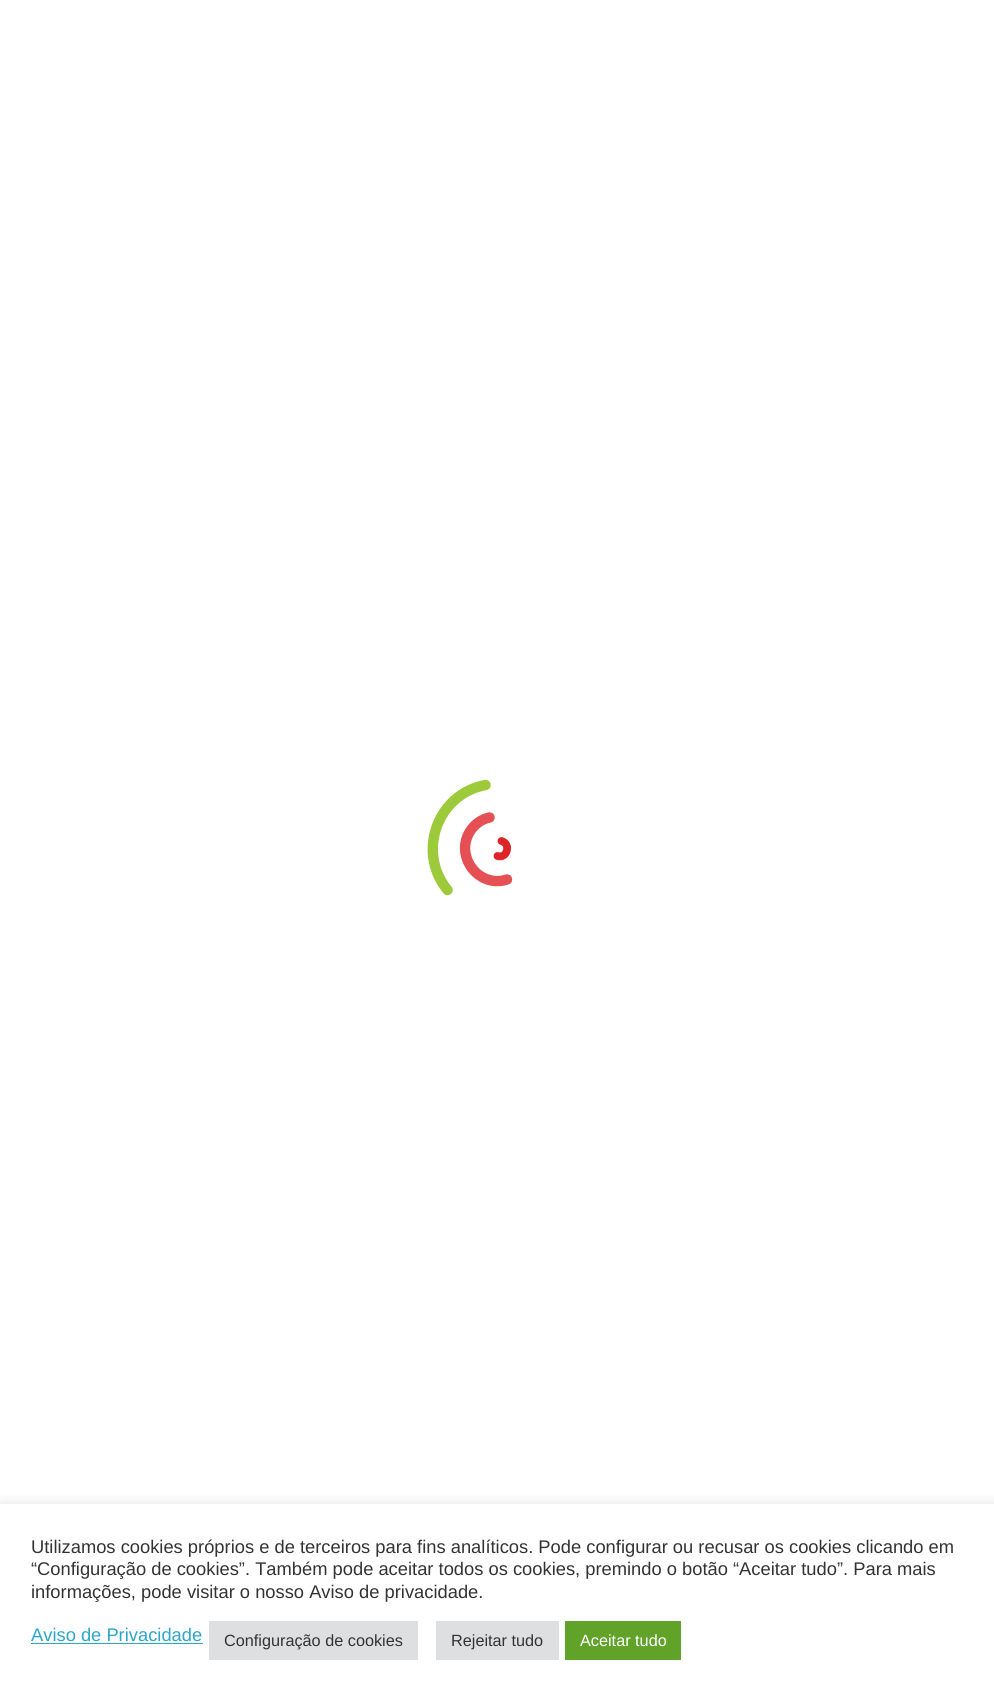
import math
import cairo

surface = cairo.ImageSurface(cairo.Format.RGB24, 994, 1697)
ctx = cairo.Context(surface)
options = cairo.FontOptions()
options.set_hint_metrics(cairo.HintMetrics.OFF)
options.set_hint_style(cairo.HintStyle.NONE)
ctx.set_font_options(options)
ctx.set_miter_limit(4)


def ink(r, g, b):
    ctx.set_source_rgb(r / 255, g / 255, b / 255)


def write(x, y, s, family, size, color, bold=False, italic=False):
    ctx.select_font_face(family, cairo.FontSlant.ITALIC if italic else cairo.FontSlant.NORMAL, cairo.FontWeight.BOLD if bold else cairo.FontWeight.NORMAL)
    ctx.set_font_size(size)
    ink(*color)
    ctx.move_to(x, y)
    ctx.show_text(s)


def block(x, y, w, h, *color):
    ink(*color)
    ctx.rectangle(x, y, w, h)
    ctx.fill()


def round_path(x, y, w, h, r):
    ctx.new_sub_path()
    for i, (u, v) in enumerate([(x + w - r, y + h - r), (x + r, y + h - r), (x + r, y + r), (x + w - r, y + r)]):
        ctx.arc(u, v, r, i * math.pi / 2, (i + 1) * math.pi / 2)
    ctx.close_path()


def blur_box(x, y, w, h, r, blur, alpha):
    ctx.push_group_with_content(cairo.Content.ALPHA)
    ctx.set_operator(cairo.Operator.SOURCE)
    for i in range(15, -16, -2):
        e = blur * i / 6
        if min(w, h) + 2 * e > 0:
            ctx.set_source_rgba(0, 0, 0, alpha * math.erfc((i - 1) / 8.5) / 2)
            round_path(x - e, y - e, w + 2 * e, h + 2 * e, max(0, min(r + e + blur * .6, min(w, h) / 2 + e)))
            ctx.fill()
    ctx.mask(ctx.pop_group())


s1 = dict(family="Liberation Sans", size=18.33, color=(51, 51, 51))
s2 = dict(family="Liberation Sans", size=18.33, color=(43, 166, 203))
s3 = dict(family="Liberation Sans", size=16.25, color=(51, 51, 51))
s4 = dict(family="Liberation Sans", size=16.25, color=(255, 255, 255))

ink(255, 255, 255)
ctx.paint()
ctx.new_path()
ctx.move_to(447.5, 890)
ctx.curve_to(416.5, 852.5, 437, 794, 485.5, 785)
ink(156, 202, 59)
ctx.set_line_width(10.4)
ctx.set_line_cap(cairo.LineCap.ROUND)
ctx.set_line_join(cairo.LineJoin.ROUND)
ctx.stroke()
ctx.new_path()
ctx.move_to(507, 879.5)
ctx.curve_to(477.5, 889, 452.5, 853.5, 472, 828.5)
ctx.curve_to(476.5, 823, 482.5, 819, 489.5, 817.5)
ink(228, 80, 84)
ctx.stroke()
ctx.new_path()
ctx.move_to(497.5, 856)
ctx.curve_to(507, 859, 511.5, 844, 501.5, 841)
ink(221, 36, 41)
ctx.set_line_width(7.8)
ctx.stroke()
ctx.save()
ctx.rectangle(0, 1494, 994, 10)
ctx.clip()
ink(172, 171, 171)
blur_box(0, 1503, 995, 193, 0, 6, 0.3)
ctx.restore()
write(31, 1553, "Utilizamos cookies próprios e de terceiros para fins analíticos. Pode configurar ou recusar os cookies clicando em", **s1)
write(31, 1575, "“Configuração de cookies”. Também pode aceitar todos os cookies, premindo o botão “Aceitar tudo”. Para mais", **s1)
write(31, 1598, "informações, pode visitar o nosso Aviso de privacidade.", **s1)
write(31, 1641, "Aviso de Privacidade", **s2)
block(31, 1643, 172, 1, 43, 166, 203)
block(209, 1621, 209, 39, 222, 223, 224)
write(224, 1646, "Configuração de cookies", **s3)
block(436, 1621, 123, 39, 222, 223, 224)
write(451, 1646, "Rejeitar tudo", **s3)
block(565, 1621, 116, 39, 97, 162, 41)
write(580, 1646, "Aceitar tudo", **s4)
surface.write_to_png("screenshot.png")
